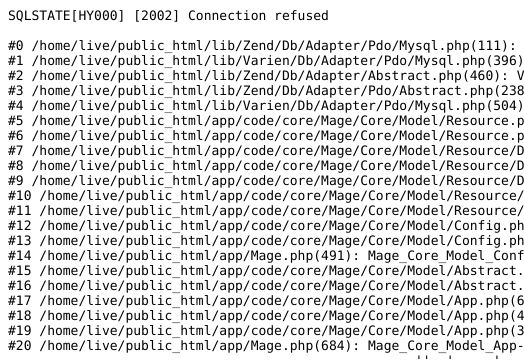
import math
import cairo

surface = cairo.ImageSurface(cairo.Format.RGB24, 524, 360)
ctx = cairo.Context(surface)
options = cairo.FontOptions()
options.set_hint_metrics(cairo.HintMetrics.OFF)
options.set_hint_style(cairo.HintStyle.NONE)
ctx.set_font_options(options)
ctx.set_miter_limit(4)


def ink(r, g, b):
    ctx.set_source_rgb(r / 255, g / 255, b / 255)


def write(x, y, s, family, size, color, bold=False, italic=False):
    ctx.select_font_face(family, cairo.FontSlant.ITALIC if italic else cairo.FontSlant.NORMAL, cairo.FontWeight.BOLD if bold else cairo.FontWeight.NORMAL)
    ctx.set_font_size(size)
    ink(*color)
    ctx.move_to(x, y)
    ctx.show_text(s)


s1 = dict(family="DejaVu Sans Mono", size=13, color=(0, 0, 0))

ink(255, 255, 255)
ctx.paint()
write(8, 20, "SQLSTATE[HY000] [2002] Connection refused", **s1)
write(8, 50, "#0 /home/live/public_html/lib/Zend/Db/Adapter/Pdo/Mysql.php(111):", **s1)
write(8, 65, "#1 /home/live/public_html/lib/Varien/Db/Adapter/Pdo/Mysql.php(396)", **s1)
write(8, 80, "#2 /home/live/public_html/lib/Zend/Db/Adapter/Abstract.php(460): V", **s1)
write(8, 95, "#3 /home/live/public_html/lib/Zend/Db/Adapter/Pdo/Abstract.php(238", **s1)
write(8, 110, "#4 /home/live/public_html/lib/Varien/Db/Adapter/Pdo/Mysql.php(504)", **s1)
write(8, 125, "#5 /home/live/public_html/app/code/core/Mage/Core/Model/Resource.p", **s1)
write(8, 140, "#6 /home/live/public_html/app/code/core/Mage/Core/Model/Resource.p", **s1)
write(8, 155, "#7 /home/live/public_html/app/code/core/Mage/Core/Model/Resource/D", **s1)
write(8, 170, "#8 /home/live/public_html/app/code/core/Mage/Core/Model/Resource/D", **s1)
write(8, 185, "#9 /home/live/public_html/app/code/core/Mage/Core/Model/Resource/D", **s1)
write(8, 200, "#10 /home/live/public_html/app/code/core/Mage/Core/Model/Resource/", **s1)
write(8, 215, "#11 /home/live/public_html/app/code/core/Mage/Core/Model/Resource/", **s1)
write(8, 230, "#12 /home/live/public_html/app/code/core/Mage/Core/Model/Config.ph", **s1)
write(8, 245, "#13 /home/live/public_html/app/code/core/Mage/Core/Model/Config.ph", **s1)
write(8, 260, "#14 /home/live/public_html/app/Mage.php(491): Mage_Core_Model_Conf", **s1)
write(8, 275, "#15 /home/live/public_html/app/code/core/Mage/Core/Model/Abstract.", **s1)
write(8, 290, "#16 /home/live/public_html/app/code/core/Mage/Core/Model/Abstract.", **s1)
write(8, 305, "#17 /home/live/public_html/app/code/core/Mage/Core/Model/App.php(6", **s1)
write(8, 320, "#18 /home/live/public_html/app/code/core/Mage/Core/Model/App.php(4", **s1)
write(8, 335, "#19 /home/live/public_html/app/code/core/Mage/Core/Model/App.php(3", **s1)
write(8, 350, "#20 /home/live/public_html/app/Mage.php(684): Mage_Core_Model_App-", **s1)
write(415, 365, "'', '", **s1)
write(493, 365, "'", **s1)
surface.write_to_png("screenshot.png")
